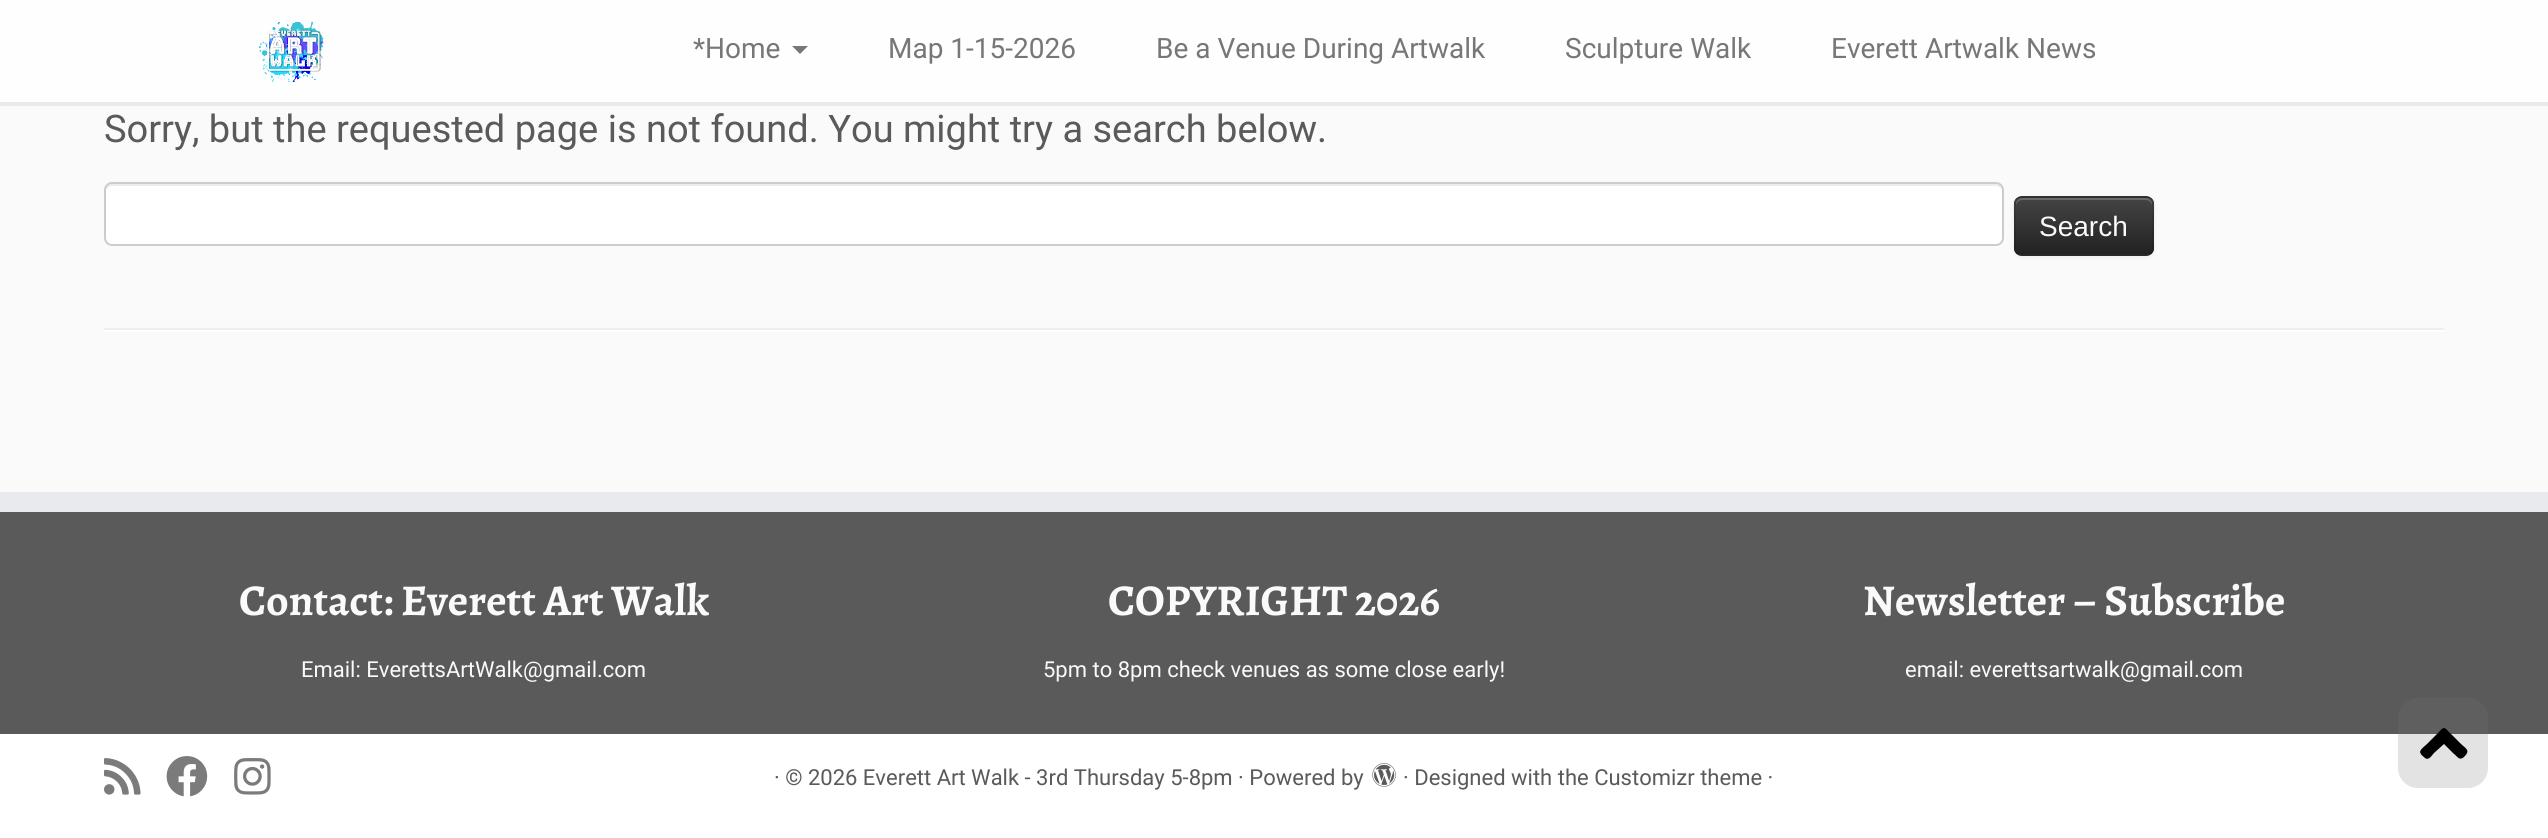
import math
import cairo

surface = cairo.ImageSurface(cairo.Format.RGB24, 2548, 838)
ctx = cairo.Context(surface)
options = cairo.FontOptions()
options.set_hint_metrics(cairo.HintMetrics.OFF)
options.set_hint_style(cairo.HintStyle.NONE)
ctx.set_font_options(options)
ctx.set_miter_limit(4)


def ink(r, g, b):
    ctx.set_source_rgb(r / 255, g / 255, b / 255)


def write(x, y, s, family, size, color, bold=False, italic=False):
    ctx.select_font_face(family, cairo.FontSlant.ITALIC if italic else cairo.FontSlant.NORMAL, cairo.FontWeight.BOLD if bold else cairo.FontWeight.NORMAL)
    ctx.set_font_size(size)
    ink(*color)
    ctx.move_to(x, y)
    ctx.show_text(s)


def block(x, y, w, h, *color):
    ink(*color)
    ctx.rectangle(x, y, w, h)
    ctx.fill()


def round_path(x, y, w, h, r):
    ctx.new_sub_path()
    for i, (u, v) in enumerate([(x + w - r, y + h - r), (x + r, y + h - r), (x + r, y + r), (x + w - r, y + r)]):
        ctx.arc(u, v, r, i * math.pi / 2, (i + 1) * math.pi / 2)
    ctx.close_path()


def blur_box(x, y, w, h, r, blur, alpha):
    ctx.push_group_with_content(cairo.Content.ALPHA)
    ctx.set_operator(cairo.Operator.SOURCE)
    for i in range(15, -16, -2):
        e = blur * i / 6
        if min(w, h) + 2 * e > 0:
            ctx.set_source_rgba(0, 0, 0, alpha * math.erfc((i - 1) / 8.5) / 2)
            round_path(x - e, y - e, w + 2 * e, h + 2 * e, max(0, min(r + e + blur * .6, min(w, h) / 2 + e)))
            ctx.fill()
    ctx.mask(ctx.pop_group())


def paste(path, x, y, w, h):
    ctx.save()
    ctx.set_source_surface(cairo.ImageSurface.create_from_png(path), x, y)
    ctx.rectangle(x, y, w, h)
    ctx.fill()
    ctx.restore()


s1 = dict(family="Roboto", size=28, color=(119, 119, 119))
s2 = dict(family="Roboto", size=38, color=(90, 90, 90))
s3 = dict(family="Liberation Sans", size=28, color=(250, 250, 250))
s4 = dict(family="Alegreya", size=44, color=(250, 250, 250), bold=True)
s5 = dict(family="Roboto", size=22, color=(250, 250, 250))
s6 = dict(family="Roboto", size=22, color=(90, 90, 90))

ink(250, 250, 250)
ctx.paint()
block(0, 0, 2548, 102, 254, 254, 254)
block(0, 102, 2548, 4, 233, 234, 238)
paste("pic1.png", 258, 21, 66, 61)
write(693, 58, "*Home", **s1)
ctx.new_path()
ctx.move_to(792, 46)
ctx.line_to(808, 46)
ctx.line_to(800, 54)
ctx.close_path()
ctx.fill()
write(888, 58, "Map 1-15-2026", **s1)
write(1156, 58, "Be a Venue During Artwalk", **s1)
write(1565, 58, "Sculpture Walk", **s1)
write(1831, 58, "Everett Artwalk News", **s1)
write(104, 142, "Sorry, but the requested page is not found. You might try a search below.", **s2)
ink(255, 255, 255)
round_path(104, 182, 1900, 64, 8)
ctx.fill()
ink(236, 236, 236)
ctx.new_path()
ctx.move_to(112, 186)
ctx.line_to(1996, 186)
ctx.curve_to(1999, 186, 2002, 189, 2002, 192)
ctx.curve_to(2002, 188, 2001, 184, 1996, 184)
ctx.line_to(112, 184)
ctx.curve_to(107, 184, 106, 188, 106, 192)
ctx.curve_to(106, 189, 109, 186, 112, 186)
ctx.close_path()
ctx.fill()
round_path(105, 183, 1898, 62, 7)
ink(204, 204, 204)
ctx.stroke()
ink(0, 0, 0)
blur_box(2014, 198, 140, 60, 8, 2, 0.05)
ink(54, 54, 54)
round_path(2014, 196, 140, 60, 8)
ctx.fill()
ctx.save()
round_path(2014, 196, 140, 60, 8)
ctx.clip()
gradient = cairo.LinearGradient(2084, 198, 2084, 254)
gradient.add_color_stop_rgba(0, 0.267, 0.267, 0.267, 1)
gradient.add_color_stop_rgba(1, 0.133, 0.133, 0.133, 1)
ctx.set_source(gradient)
ctx.rectangle(2014, 198, 140, 56)
ctx.fill()
ctx.restore()
ctx.set_source_rgba(1, 1, 1, 0.2)
ctx.new_path()
ctx.move_to(2022, 200)
ctx.line_to(2146, 200)
ctx.curve_to(2149, 200, 2152, 203, 2152, 206)
ctx.line_to(2152, 204)
ctx.curve_to(2152, 201, 2149, 198, 2146, 198)
ctx.line_to(2022, 198)
ctx.curve_to(2019, 198, 2016, 201, 2016, 204)
ctx.line_to(2016, 206)
ctx.curve_to(2016, 203, 2019, 200, 2022, 200)
ctx.close_path()
ctx.fill()
ctx.new_path()
ctx.move_to(2151, 253)
ctx.curve_to(2149.5, 254.5, 2148, 255, 2146, 255)
ctx.line_to(2022, 255)
ctx.curve_to(2020, 255, 2018.5, 254.5, 2017, 253)
ctx.set_source_rgba(0, 0, 0, 0.25)
ctx.stroke()
ctx.new_path()
ctx.move_to(2017, 253)
ctx.curve_to(2014, 250, 2015, 244.5, 2015, 240.5)
ctx.line_to(2015, 226)
ctx.curve_to(2015, 194, 2010, 197, 2042.5, 197)
ctx.line_to(2125.5, 197)
ctx.curve_to(2158, 197, 2153, 194, 2153, 226)
ctx.line_to(2153, 240.5)
ctx.curve_to(2153, 244.5, 2154, 250, 2151, 253)
ctx.set_source_rgba(0, 0, 0, 0.1)
ctx.stroke()
write(2039, 236, "Search", **s3)
block(104, 328, 2340, 2, 238, 238, 238)
block(104, 330, 2340, 2, 255, 255, 255)
block(0, 512, 2548, 222, 90, 90, 90)
block(0, 492, 2548, 20, 233, 234, 238)
write(239, 615, "Contact: Everett Art Walk", **s4)
write(301, 677, "Email: EverettsArtWalk@gmail.com", **s5)
write(1108, 615, "COPYRIGHT 2026", **s4)
write(1043, 677, "5pm to 8pm check venues as some close early!", **s5)
write(1863, 615, "Newsletter – Subscribe", **s4)
write(1905, 677, "email: everettsartwalk@gmail.com", **s5)
block(0, 734, 2548, 104, 255, 255, 255)
paste("pic2.png", 104, 758, 37, 37)
paste("pic3.png", 166, 756, 42, 41)
paste("pic4.png", 234, 758, 37, 37)
write(774, 785, "· © 2026 Everett Art Walk - 3rd Thursday 5-8pm · Powered by", **s6)
paste("pic5.png", 1372, 763, 24, 24)
write(1403, 785, "· Designed with the Customizr theme ·", **s6)
ctx.set_source_rgba(0.467, 0.467, 0.467, 0.2)
round_path(2398, 698, 90, 90, 20)
ctx.fill()
ink(0, 0, 0)
ctx.new_path()
ctx.move_to(2446, 729)
ctx.line_to(2460, 743)
ctx.curve_to(2466, 749, 2471, 750, 2464, 757)
ctx.curve_to(2459, 761, 2458, 757, 2453, 753)
ctx.line_to(2444, 744)
ctx.line_to(2434, 753)
ctx.curve_to(2432, 755, 2429, 761, 2425, 758)
ctx.curve_to(2416, 751, 2421, 750, 2428, 743)
ctx.line_to(2438, 733)
ctx.curve_to(2440, 731, 2443, 726, 2446, 729)
ctx.close_path()
ctx.fill()
surface.write_to_png("screenshot.png")
